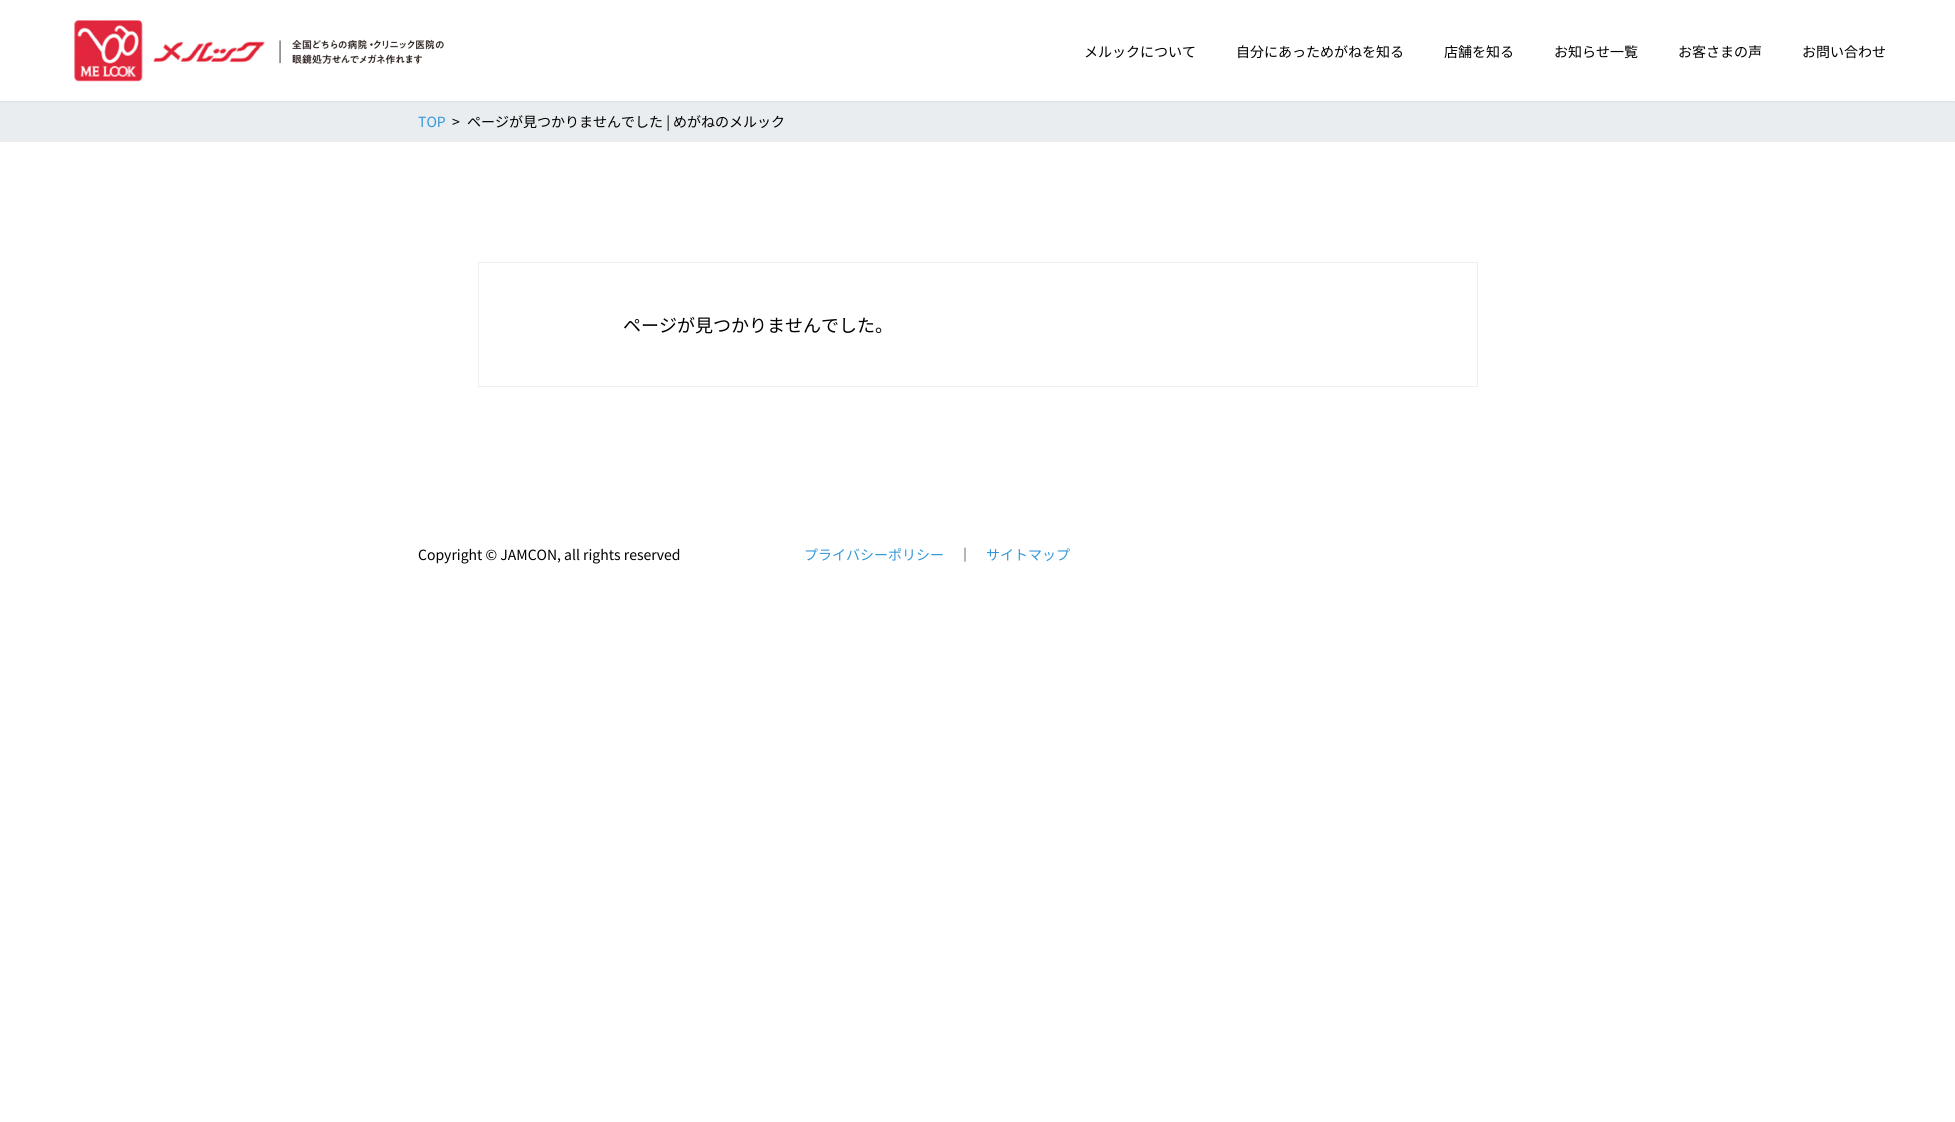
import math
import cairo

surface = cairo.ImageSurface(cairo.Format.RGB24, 1955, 1122)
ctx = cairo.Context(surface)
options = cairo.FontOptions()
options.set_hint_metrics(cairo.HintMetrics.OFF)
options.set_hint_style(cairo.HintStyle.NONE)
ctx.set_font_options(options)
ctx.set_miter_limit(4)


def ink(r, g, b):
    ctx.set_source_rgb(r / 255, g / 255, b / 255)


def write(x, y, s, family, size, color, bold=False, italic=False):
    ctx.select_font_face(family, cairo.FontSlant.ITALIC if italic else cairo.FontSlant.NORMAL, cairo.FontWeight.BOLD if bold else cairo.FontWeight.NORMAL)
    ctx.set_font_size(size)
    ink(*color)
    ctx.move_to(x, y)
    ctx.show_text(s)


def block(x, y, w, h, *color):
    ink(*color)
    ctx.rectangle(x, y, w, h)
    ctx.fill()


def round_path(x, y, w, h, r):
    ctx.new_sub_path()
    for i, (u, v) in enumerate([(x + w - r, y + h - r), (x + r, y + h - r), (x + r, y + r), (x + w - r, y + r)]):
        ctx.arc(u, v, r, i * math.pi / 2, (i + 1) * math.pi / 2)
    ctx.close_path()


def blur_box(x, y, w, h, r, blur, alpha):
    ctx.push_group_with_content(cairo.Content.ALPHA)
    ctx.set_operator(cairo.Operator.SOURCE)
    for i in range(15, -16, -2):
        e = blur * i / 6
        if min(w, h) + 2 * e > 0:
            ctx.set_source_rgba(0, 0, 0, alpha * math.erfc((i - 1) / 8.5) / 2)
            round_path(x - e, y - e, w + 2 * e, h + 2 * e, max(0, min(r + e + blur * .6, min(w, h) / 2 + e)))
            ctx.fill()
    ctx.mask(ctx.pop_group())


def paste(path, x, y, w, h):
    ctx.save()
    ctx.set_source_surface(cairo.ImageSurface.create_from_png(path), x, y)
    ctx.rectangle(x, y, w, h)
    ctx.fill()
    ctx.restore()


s1 = dict(family="Noto Sans JP", size=14, color=(0, 0, 0))
s2 = dict(family="Noto Sans JP", size=14, color=(51, 152, 219))
s3 = dict(family="Noto Sans JP", size=18, color=(0, 0, 0))

ink(255, 255, 255)
ctx.paint()
block(0, 101, 1955, 41, 233, 237, 239)
ctx.save()
ctx.rectangle(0, 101, 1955, 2)
ctx.clip()
ink(0, 0, 0)
blur_box(0, 0, 1955, 101, 0, 2.5, 0.1)
ctx.restore()
paste("pic1.png", 74, 20, 370, 62)
write(1084, 57, "メルックについて", **s1)
write(1236, 57, "自分にあっためがねを知る", **s1)
write(1444, 57, "店舗を知る", **s1)
write(1554, 57, "お知らせ一覧", **s1)
write(1678, 57, "お客さまの声", **s1)
write(1802, 57, "お問い合わせ", **s1)
write(418, 127, "TOP", **s2)
write(452, 127, ">", **s1)
write(467, 127, "ページが見つかりませんでした | めがねのメルック", **s1)
ctx.rectangle(478.5, 262.5, 999, 124)
ink(236, 240, 241)
ctx.set_line_width(1)
ctx.stroke()
write(623, 332, "ページが見つかりませんでした。", **s3)
write(418, 560, "Copyright © JAMCON, all rights reserved", **s1)
write(804, 560, "プライバシーポリシー", **s2)
write(958, 560, "│", **s1)
write(986, 560, "サイトマップ", **s2)
surface.write_to_png("screenshot.png")
